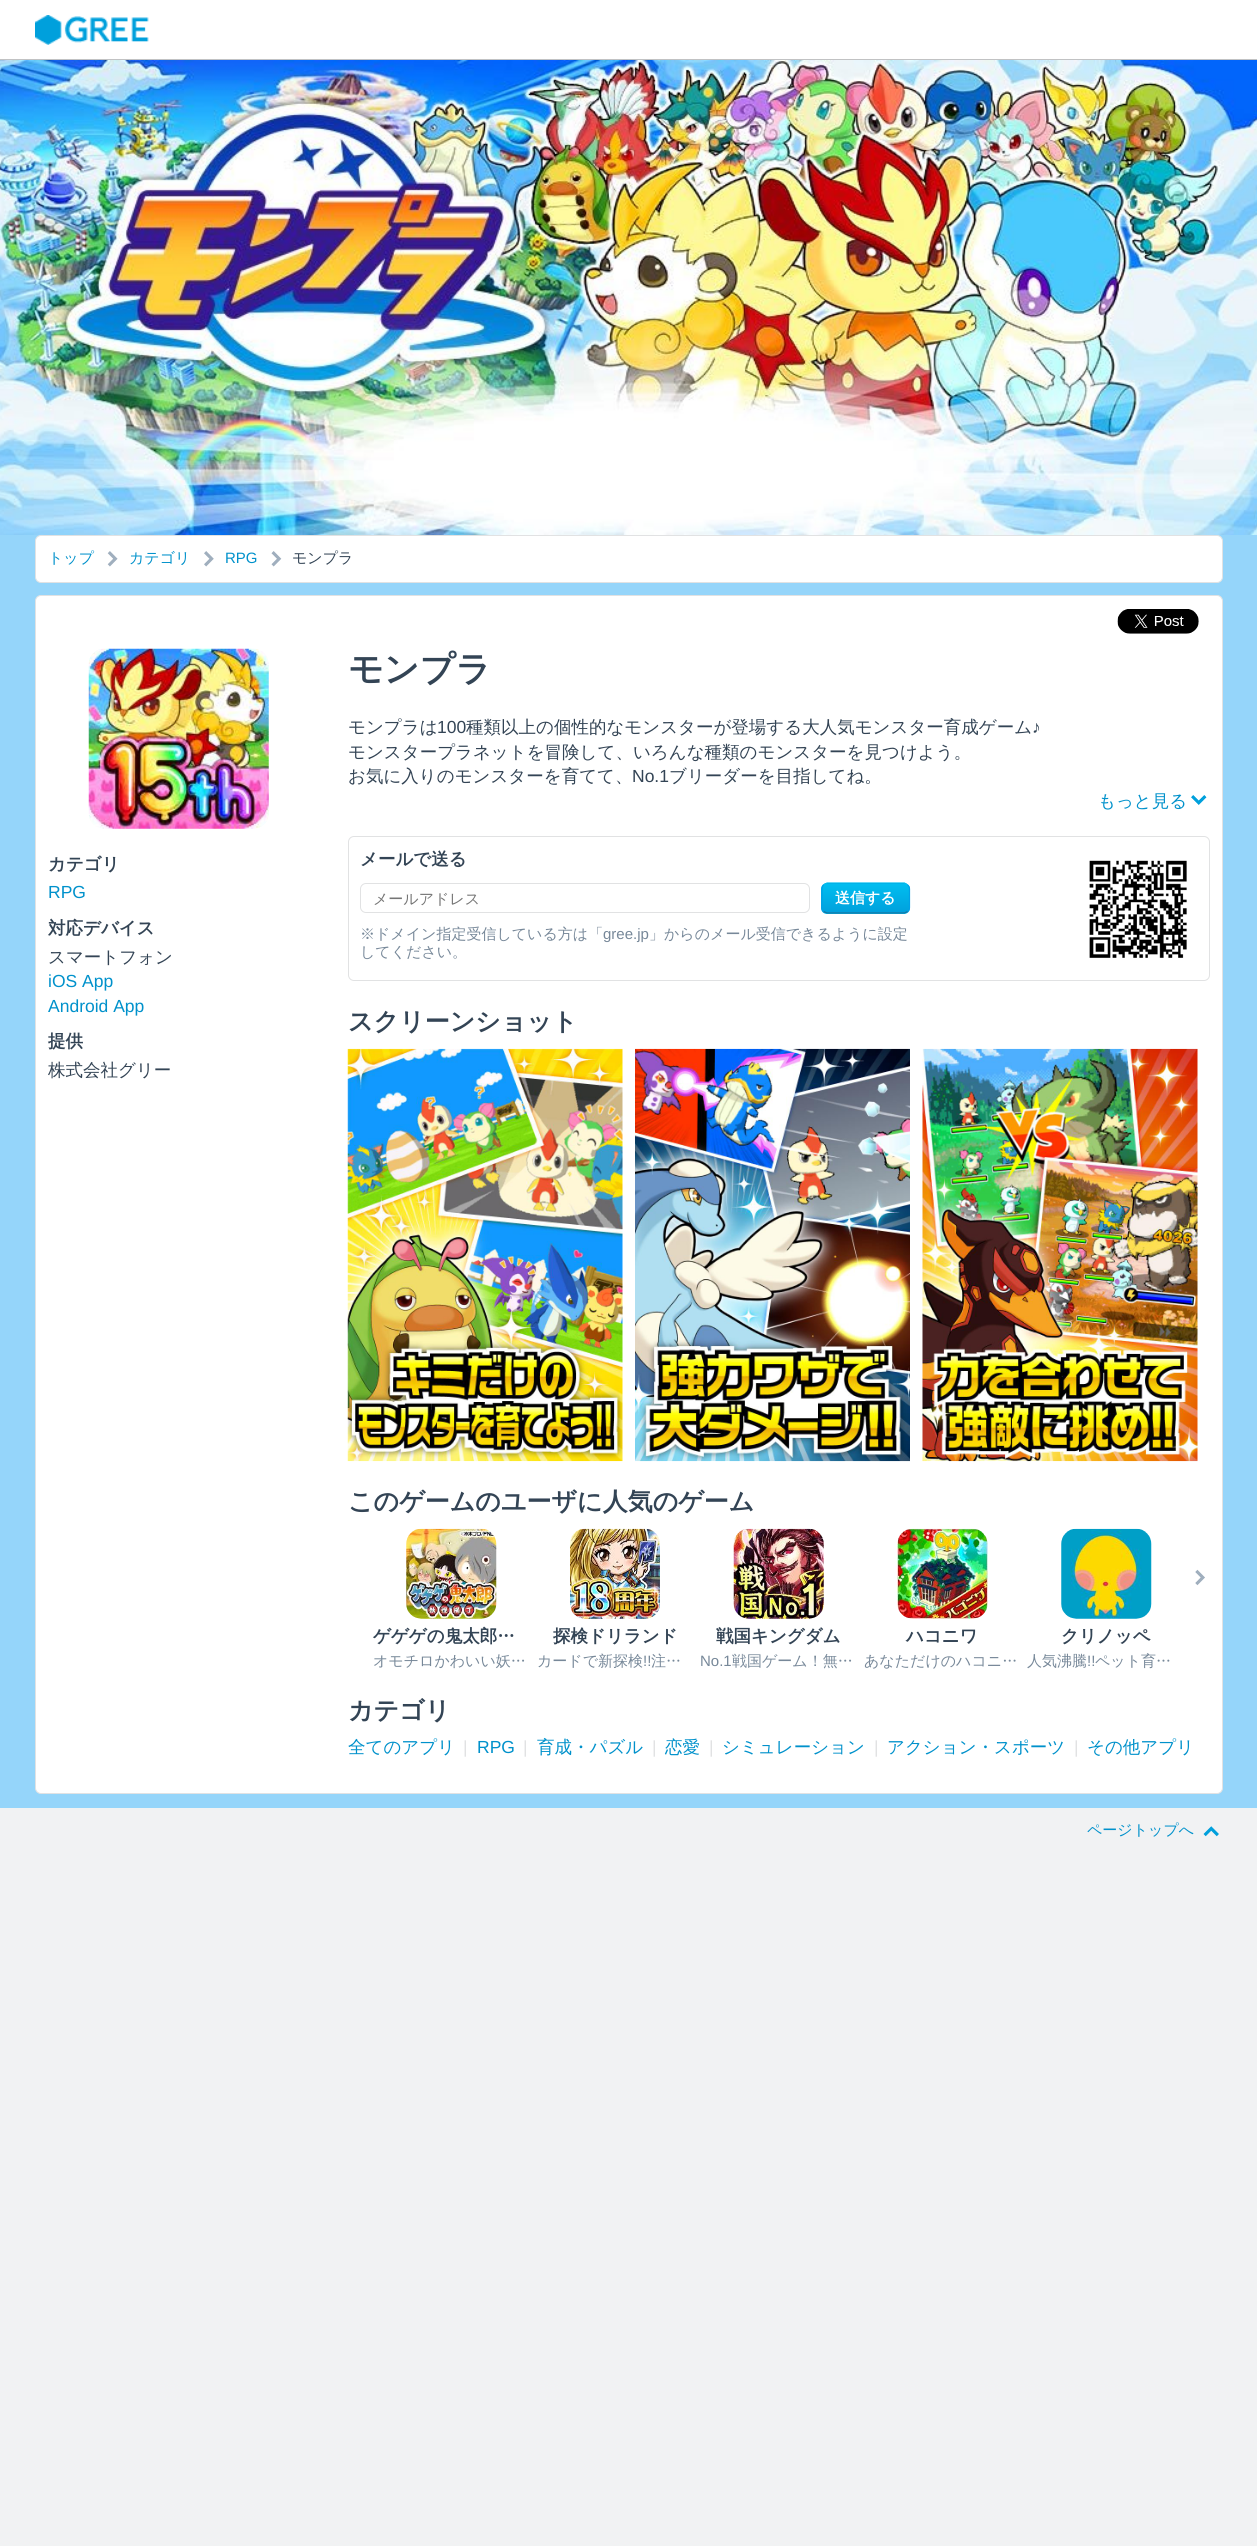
import math
import cairo

surface = cairo.ImageSurface(cairo.Format.RGB24, 1257, 2546)
ctx = cairo.Context(surface)
options = cairo.FontOptions()
options.set_hint_metrics(cairo.HintMetrics.OFF)
options.set_hint_style(cairo.HintStyle.NONE)
ctx.set_font_options(options)
ctx.set_miter_limit(4)


def ink(r, g, b):
    ctx.set_source_rgb(r / 255, g / 255, b / 255)


def write(x, y, s, family, size, color, bold=False, italic=False):
    ctx.select_font_face(family, cairo.FontSlant.ITALIC if italic else cairo.FontSlant.NORMAL, cairo.FontWeight.BOLD if bold else cairo.FontWeight.NORMAL)
    ctx.set_font_size(size)
    ink(*color)
    ctx.move_to(x, y)
    ctx.show_text(s)


def block(x, y, w, h, *color):
    ink(*color)
    ctx.rectangle(x, y, w, h)
    ctx.fill()


def round_path(x, y, w, h, r):
    ctx.new_sub_path()
    for i, (u, v) in enumerate([(x + w - r, y + h - r), (x + r, y + h - r), (x + r, y + r), (x + w - r, y + r)]):
        ctx.arc(u, v, r, i * math.pi / 2, (i + 1) * math.pi / 2)
    ctx.close_path()


def paste(path, x, y, w, h):
    ctx.save()
    ctx.set_source_surface(cairo.ImageSurface.create_from_png(path), x, y)
    ctx.rectangle(x, y, w, h)
    ctx.fill()
    ctx.restore()


s1 = dict(family="WenQuanYi Zen Hei Medium", size=15, color=(0, 145, 203))
s2 = dict(family="Liberation Sans", size=15, color=(0, 145, 203))
s3 = dict(family="WenQuanYi Zen Hei Medium", size=15, color=(51, 68, 85))
s4 = dict(family="WenQuanYi Zen Hei", size=17.5, color=(51, 68, 85), bold=True)
s5 = dict(family="Liberation Sans", size=17.5, color=(0, 145, 203))
s6 = dict(family="WenQuanYi Zen Hei Medium", size=17.5, color=(51, 68, 85))
s7 = dict(family="WenQuanYi Zen Hei", size=35, color=(51, 68, 85), bold=True)
s8 = dict(family="Liberation Sans", size=17.5, color=(51, 68, 85))
s9 = dict(family="WenQuanYi Zen Hei Medium", size=17.5, color=(0, 145, 203))
s10 = dict(family="WenQuanYi Zen Hei Medium", size=15, color=(117, 117, 117))
s11 = dict(family="WenQuanYi Zen Hei", size=15, color=(255, 255, 255), bold=True)
s12 = dict(family="WenQuanYi Zen Hei Medium", size=15, color=(119, 136, 153))
s13 = dict(family="Liberation Sans", size=15, color=(119, 136, 153))
s14 = dict(family="WenQuanYi Zen Hei", size=25, color=(51, 68, 85), bold=True)
s15 = dict(family="Liberation Sans", size=17.5, color=(225, 226, 227))

ink(241, 242, 243)
ctx.paint()
block(0, 0, 1257, 59, 255, 255, 255)
block(0, 59, 1257, 1, 193, 194, 195)
paste("pic1.png", 35, 15, 114, 30)
block(0, 535, 1257, 1273, 149, 213, 250)
paste("pic2.png", 0, 60, 1257, 475)
ink(255, 255, 255)
round_path(35.5, 535.5, 1187, 47, 5.5)
ctx.fill_preserve()
ink(225, 226, 227)
ctx.set_line_width(1)
ctx.stroke()
write(48, 563, "トップ", **s1)
paste("pic3.png", 107, 551, 11, 16)
write(129, 563, "カテゴリ", **s1)
paste("pic4.png", 204, 551, 10, 16)
write(225, 563, "RPG", **s2)
paste("pic5.png", 271, 551, 11, 16)
write(292, 563, "モンプラ", **s3)
ink(255, 255, 255)
round_path(35.5, 595.5, 1187, 1198, 5.5)
ctx.fill_preserve()
ink(225, 226, 227)
ctx.stroke()
paste("pic6.png", 1117, 609, 82, 25)
paste("pic7.png", 88, 648, 181, 181)
write(48, 870, "カテゴリ", **s4)
write(48, 898, "RPG", **s5)
write(48, 934, "対応デバイス", **s4)
write(48, 963, "スマートフォン", **s6)
write(48, 987, "iOS App", **s5)
write(48, 1012, "Android App", **s5)
write(48, 1047, "提供", **s4)
write(48, 1076, "株式会社グリー", **s6)
write(348, 681, "モンプラ", **s7)
write(348, 733, "モンプラは", **s6)
write(437, 733, "100", **s8)
write(466, 733, "種類以上の個性的なモンスターが登場する大人気モンスター育成ゲーム", **s6)
write(1032, 733, "♪", **s8)
write(348, 758, "モンスタープラネットを冒険して、いろんな種類のモンスターを見つけよう。", **s6)
write(348, 782, "お気に入りのモンスターを育てて、", **s6)
write(632, 782, "No.1", **s8)
write(669, 782, "ブリーダーを目指してね。", **s6)
write(1098, 807, "もっと見る", **s9)
paste("pic8.png", 1191, 795, 16, 10)
round_path(348.5, 836.5, 861, 144, 5.5)
ink(225, 226, 227)
ctx.stroke()
write(360, 865, "メールで送る", **s4)
round_path(360.5, 883.5, 449, 29, 5.5)
ink(225, 226, 227)
ctx.stroke()
write(373, 904, "メールアドレス", **s10)
ctx.save()
round_path(821, 883, 89, 31, 6)
ctx.clip()
gradient = cairo.LinearGradient(866, 855, 866, 884)
gradient.add_color_stop_rgba(0, 0, 0.745, 0.941, 1)
gradient.add_color_stop_rgba(1, 0, 0.627, 0.863, 1)
ctx.set_source(gradient)
ctx.rectangle(821, 883, 89, 1)
ctx.fill()
gradient = cairo.LinearGradient(866, 884, 866, 913)
gradient.add_color_stop_rgba(0, 0, 0.745, 0.941, 1)
gradient.add_color_stop_rgba(1, 0, 0.627, 0.863, 1)
ctx.set_source(gradient)
ctx.rectangle(821, 884, 89, 29)
ctx.fill()
gradient = cairo.LinearGradient(866, 913, 866, 941)
gradient.add_color_stop_rgba(0, 0, 0.745, 0.941, 1)
gradient.add_color_stop_rgba(1, 0, 0.627, 0.863, 1)
ctx.set_source(gradient)
ctx.rectangle(821, 913, 89, 1)
ctx.fill()
ctx.restore()
ctx.new_path()
ctx.move_to(823.5, 885)
ctx.line_to(827, 883)
ctx.line_to(904.5, 883)
ctx.line_to(907.5, 885)
ink(0, 190, 240)
ctx.set_line_width(1.2)
ctx.stroke()
ctx.new_path()
ctx.move_to(907.5, 885)
ctx.curve_to(909, 886, 909.5, 887.5, 909.5, 889)
ctx.line_to(909.5, 907.5)
ctx.curve_to(909.5, 909, 909, 910.5, 907.5, 911.5)
ink(0, 160, 230)
ctx.stroke()
ctx.new_path()
ctx.move_to(907.5, 911.5)
ctx.line_to(904.5, 913)
ctx.line_to(827, 913)
ctx.line_to(823.5, 911.5)
ink(24, 115, 160)
ctx.stroke()
ctx.new_path()
ctx.move_to(823.5, 911.5)
ctx.curve_to(822.5, 910.5, 822, 909, 822, 907.5)
ctx.line_to(822, 889)
ctx.curve_to(822, 887.5, 822.5, 886, 823.5, 885)
ink(0, 160, 230)
ctx.stroke()
write(835, 903, "送信する", **s11)
write(360, 939, "※ドメイン指定受信している方は「", **s12)
write(603, 939, "gree.jp", **s13)
write(649, 939, "」からのメール受信できるように設定", **s12)
write(360, 957, "してください。", **s12)
paste("pic9.png", 1089, 860, 98, 98)
write(348, 1030, "スクリーンショット", **s14)
paste("pic10.png", 347, 1048, 276, 414)
paste("pic11.png", 635, 1048, 275, 414)
paste("pic12.png", 922, 1048, 276, 414)
write(348, 1510, "このゲームのユーザに人気のゲーム", **s14)
paste("pic13.png", 1195, 1569, 10, 17)
paste("pic14.png", 406, 1528, 91, 91)
write(373, 1642, "ゲゲゲの鬼太郎…", **s4)
write(373, 1666, "オモチロかわいい妖…", **s12)
paste("pic15.png", 570, 1528, 90, 91)
write(553, 1642, "探検ドリランド", **s4)
write(537, 1666, "カードで新探検", **s12)
write(643, 1666, "!!", **s13)
write(651, 1666, "注…", **s12)
paste("pic16.png", 733, 1528, 91, 91)
write(716, 1642, "戦国キングダム", **s4)
write(700, 1666, "No.1", **s13)
write(732, 1666, "戦国ゲーム！無…", **s12)
paste("pic17.png", 897, 1528, 91, 91)
write(906, 1642, "ハコニワ", **s4)
write(864, 1666, "あなただけのハコニ…", **s12)
paste("pic18.png", 1061, 1528, 91, 91)
write(1061, 1642, "クリノッペ", **s4)
write(1027, 1666, "人気沸騰", **s12)
write(1087, 1666, "!!", **s13)
write(1095, 1666, "ペット育…", **s12)
write(348, 1719, "カテゴリ", **s14)
write(348, 1753, "全てのアプリ", **s9)
write(463, 1753, "|", **s15)
write(477, 1753, "RPG", **s5)
write(523, 1753, "|", **s15)
write(537, 1753, "育成・パズル", **s9)
write(652, 1753, "|", **s15)
write(665, 1753, "恋愛", **s9)
write(709, 1753, "|", **s15)
write(722, 1753, "シミュレーション", **s9)
write(874, 1753, "|", **s15)
write(887, 1753, "アクション・スポーツ", **s9)
write(1074, 1753, "|", **s15)
write(1087, 1753, "その他アプリ", **s9)
write(1087, 1835, "ページトップへ", **s1)
paste("pic19.png", 1203, 1826, 16, 11)
surface.write_to_png("screenshot.png")
